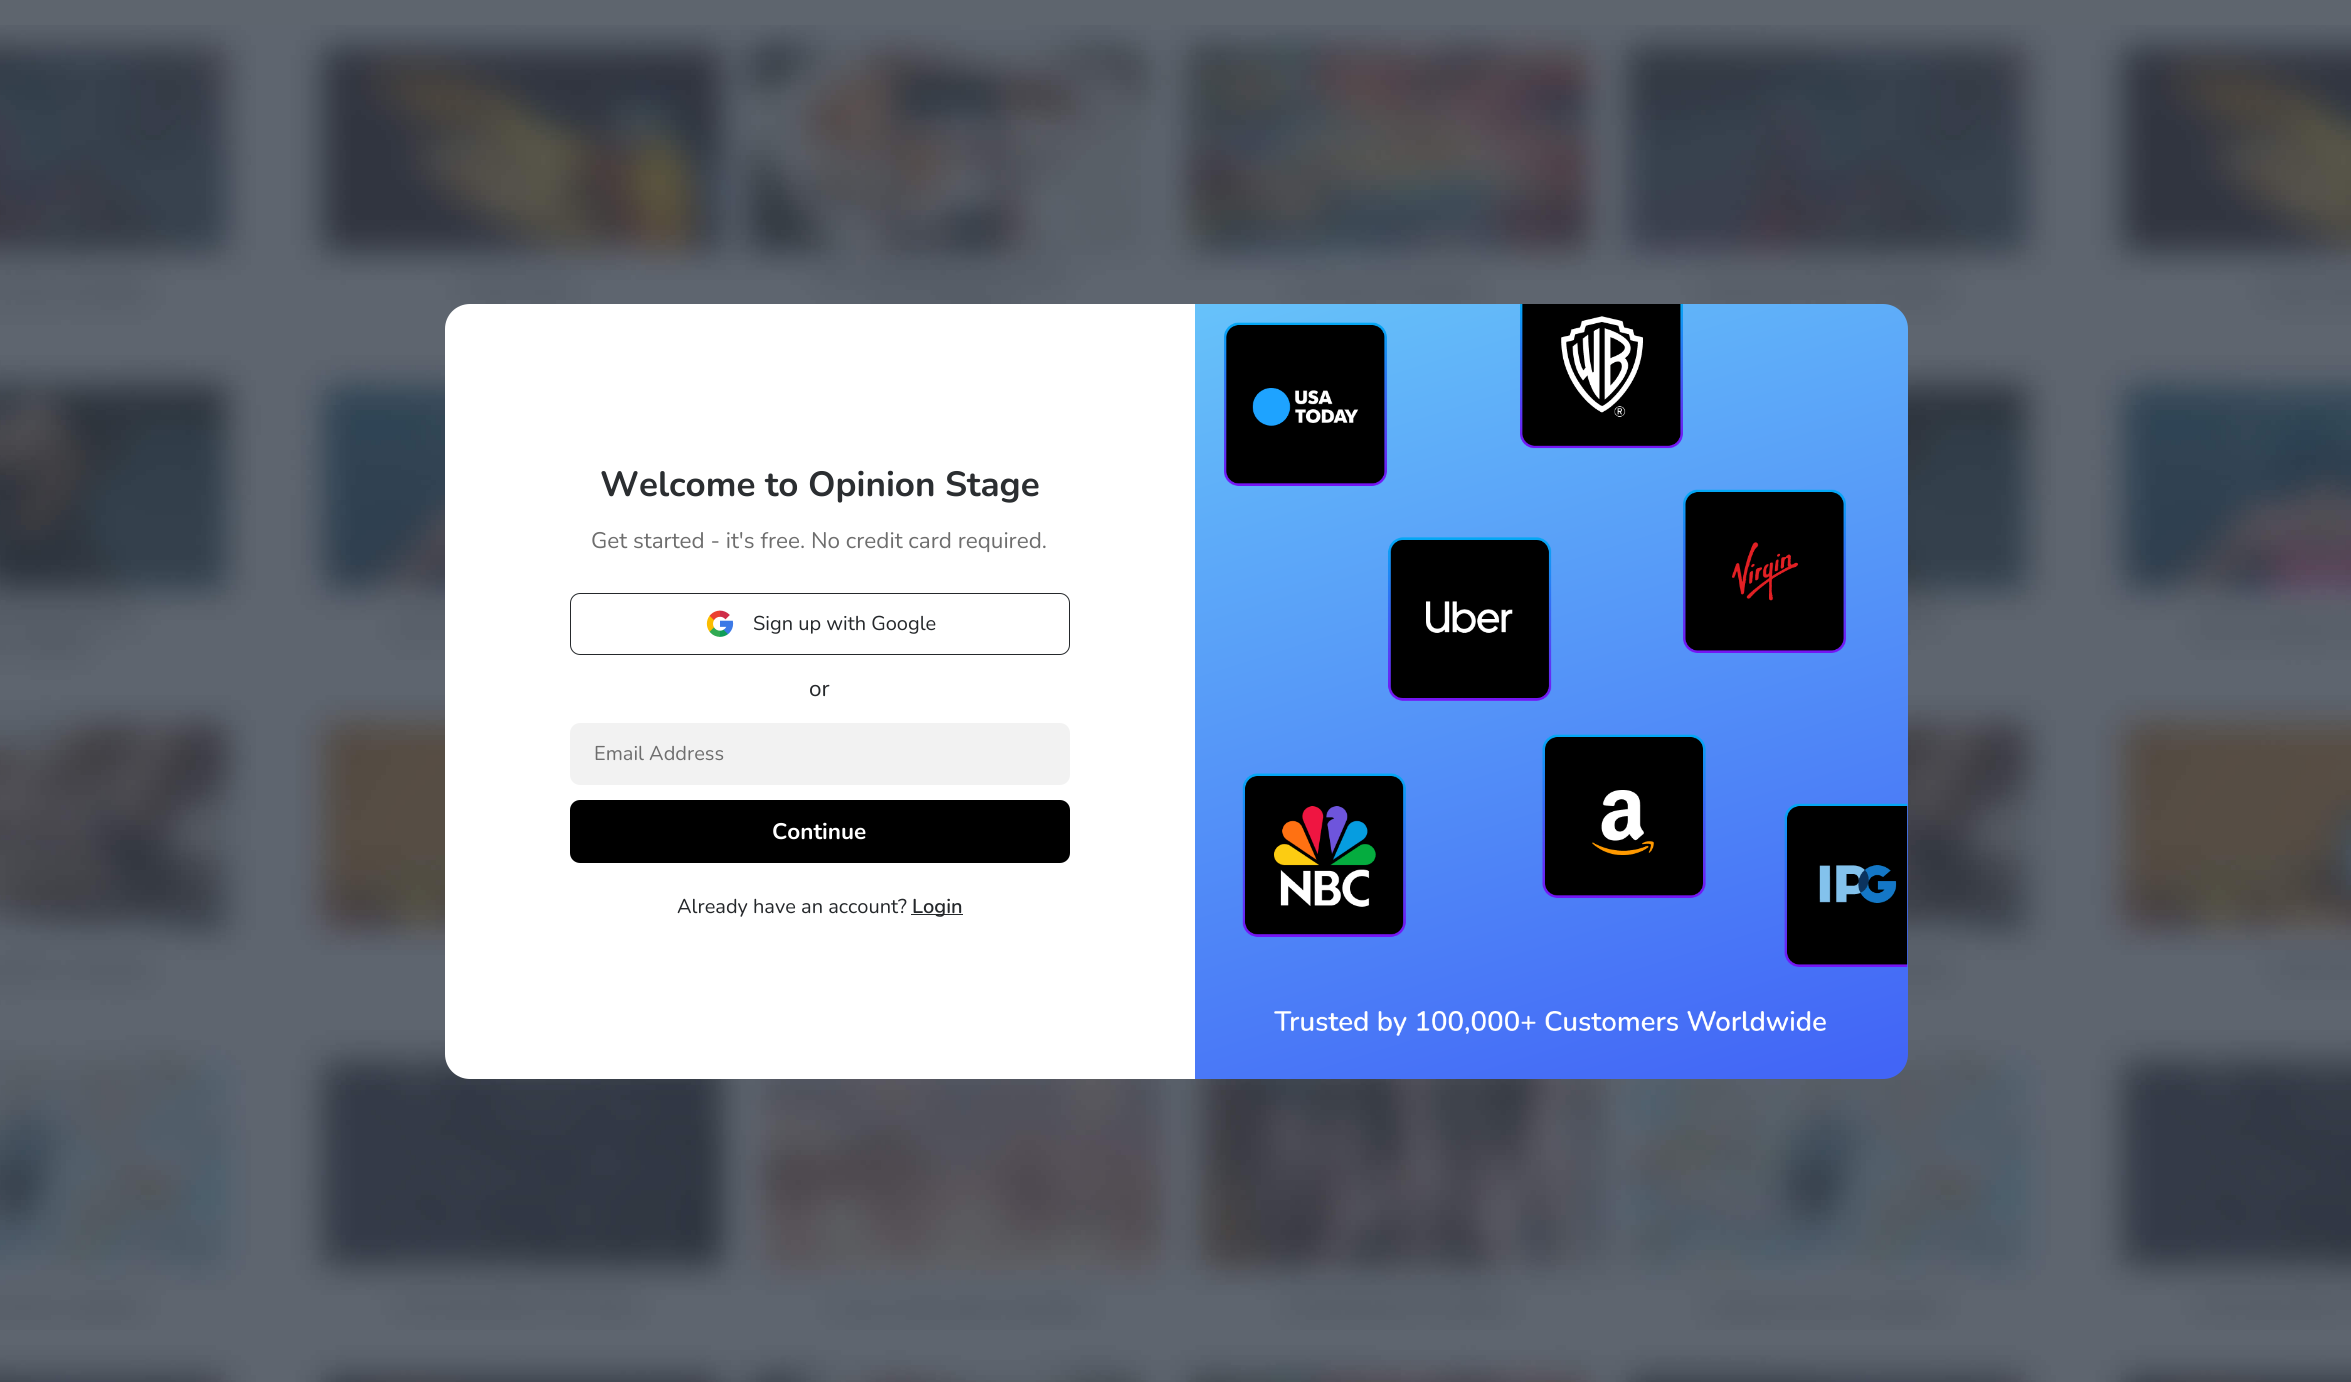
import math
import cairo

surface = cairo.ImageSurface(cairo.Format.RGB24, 2351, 1382)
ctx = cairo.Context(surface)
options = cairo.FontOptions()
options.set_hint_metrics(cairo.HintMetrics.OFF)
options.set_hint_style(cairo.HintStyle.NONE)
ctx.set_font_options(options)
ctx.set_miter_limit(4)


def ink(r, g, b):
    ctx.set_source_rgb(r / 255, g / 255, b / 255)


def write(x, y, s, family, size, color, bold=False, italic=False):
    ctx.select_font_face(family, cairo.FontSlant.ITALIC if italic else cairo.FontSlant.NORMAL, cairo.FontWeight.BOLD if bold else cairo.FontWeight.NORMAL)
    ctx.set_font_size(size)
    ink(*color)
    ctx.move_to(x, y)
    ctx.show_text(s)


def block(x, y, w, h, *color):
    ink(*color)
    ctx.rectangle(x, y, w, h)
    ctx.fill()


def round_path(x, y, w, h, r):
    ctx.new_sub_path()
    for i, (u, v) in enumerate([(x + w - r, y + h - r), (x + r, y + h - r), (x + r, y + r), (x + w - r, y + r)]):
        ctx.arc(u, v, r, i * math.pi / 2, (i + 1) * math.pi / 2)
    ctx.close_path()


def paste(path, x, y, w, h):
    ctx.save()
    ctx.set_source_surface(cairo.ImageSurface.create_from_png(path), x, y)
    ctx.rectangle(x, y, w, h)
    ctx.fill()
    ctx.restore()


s1 = dict(family="Nunito", size=35, color=(43, 46, 49), bold=True)
s2 = dict(family="Nunito", size=22.5, color=(110, 110, 110))
s3 = dict(family="Nunito", size=20, color=(37, 40, 43))
s4 = dict(family="Nunito", size=22.5, color=(37, 40, 43))
s5 = dict(family="Nunito", size=20, color=(110, 110, 110))
s6 = dict(family="Nunito", size=22.5, color=(255, 255, 255), bold=True)
s7 = dict(family="Nunito SemiBold", size=20, color=(37, 40, 43))

ink(94, 101, 110)
ctx.paint()
paste("pic1.png", 0, 25, 2351, 1357)
ink(255, 255, 255)
ctx.new_path()
ctx.move_to(470, 304)
ctx.line_to(1195, 304)
ctx.line_to(1195, 1079)
ctx.line_to(470, 1079)
ctx.curve_to(456, 1079, 445, 1068, 445, 1054)
ctx.line_to(445, 329)
ctx.curve_to(445, 315, 456, 304, 470, 304)
ctx.close_path()
ctx.fill()
write(600, 496, "Welcome to Opinion Stage", **s1)
write(591, 548, "Get started - it's free. No credit card required.", **s2)
round_path(570.5, 593.5, 499, 61, 9.5)
ink(37, 40, 43)
ctx.set_line_width(1)
ctx.stroke()
paste("pic2.png", 706, 610, 28, 27)
write(753, 630, "Sign up with Google", **s3)
write(809, 696, "or", **s4)
ink(242, 242, 242)
round_path(570, 723, 500, 62, 10)
ctx.fill()
write(594, 760, "Email Address", **s5)
ink(0, 0, 0)
round_path(570, 800, 500, 63, 10)
ctx.fill()
write(772, 839, "Continue", **s6)
write(677, 913, "Already have an account?", **s3)
block(911, 914, 52, 1, 37, 40, 43)
write(912, 913, "Login", **s7)
gradient = cairo.LinearGradient(1388, 172, 1694, 1146)
gradient.add_color_stop_rgba(0, 0.412, 0.788, 0.98, 1)
gradient.add_color_stop_rgba(0.98, 0.259, 0.396, 0.965, 1)
ctx.set_source(gradient)
ctx.new_path()
ctx.move_to(1195, 304)
ctx.line_to(1883, 304)
ctx.curve_to(1897, 304, 1908, 315, 1908, 329)
ctx.line_to(1908, 1054)
ctx.curve_to(1908, 1068, 1897, 1079, 1883, 1079)
ctx.line_to(1195, 1079)
ctx.close_path()
ctx.fill()
paste("pic3.png", 1224, 304, 684, 732)
surface.write_to_png("screenshot.png")
